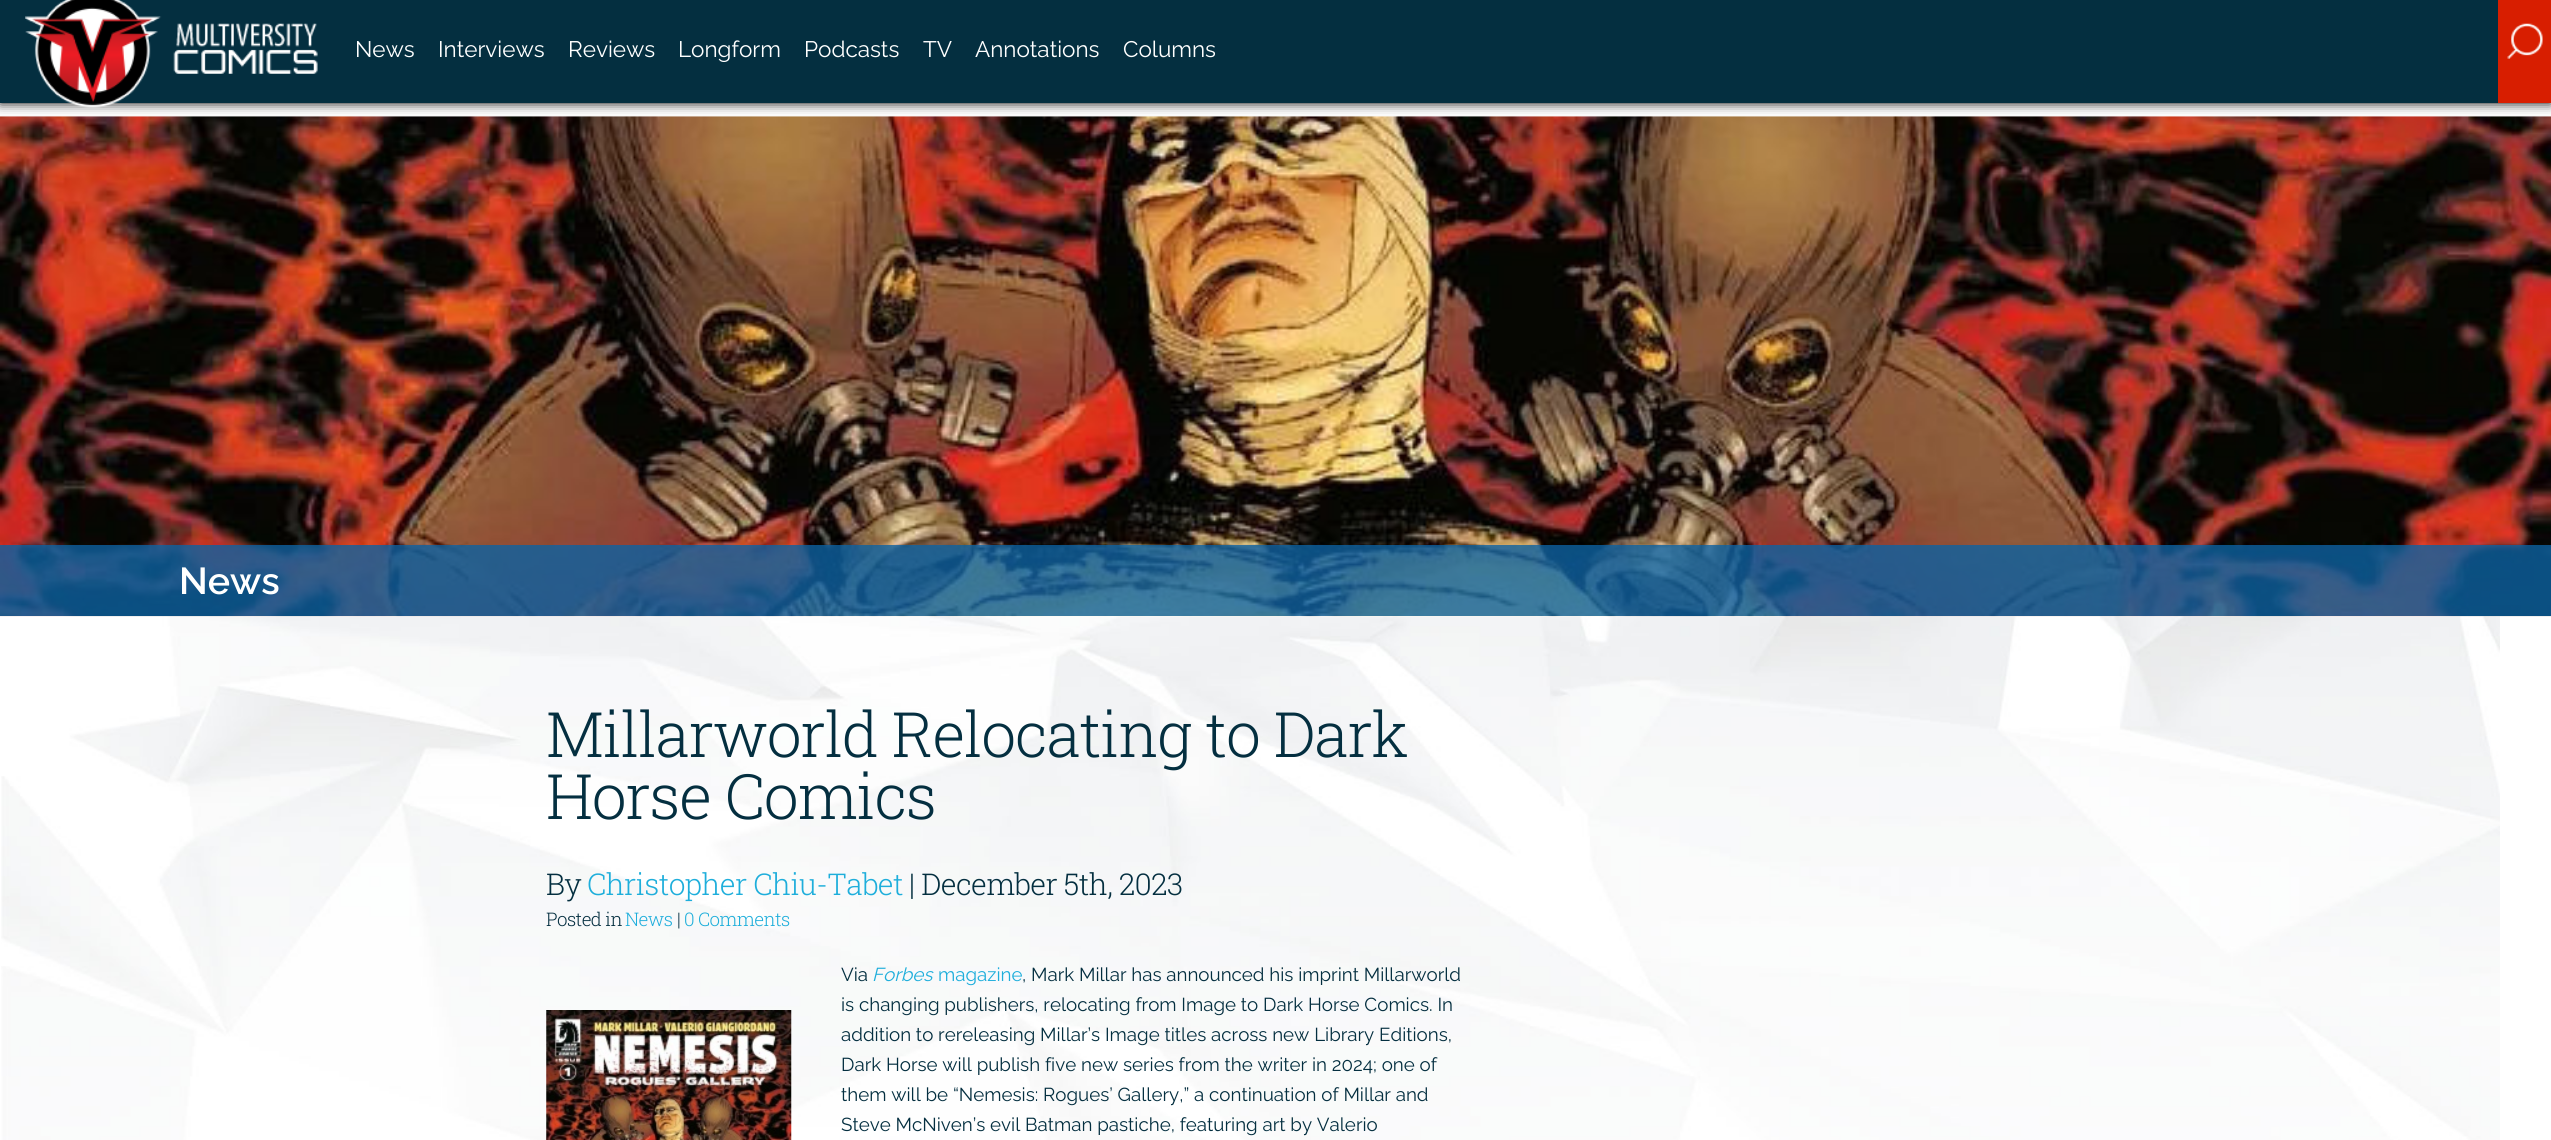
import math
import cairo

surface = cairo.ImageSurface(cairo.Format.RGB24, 2551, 1140)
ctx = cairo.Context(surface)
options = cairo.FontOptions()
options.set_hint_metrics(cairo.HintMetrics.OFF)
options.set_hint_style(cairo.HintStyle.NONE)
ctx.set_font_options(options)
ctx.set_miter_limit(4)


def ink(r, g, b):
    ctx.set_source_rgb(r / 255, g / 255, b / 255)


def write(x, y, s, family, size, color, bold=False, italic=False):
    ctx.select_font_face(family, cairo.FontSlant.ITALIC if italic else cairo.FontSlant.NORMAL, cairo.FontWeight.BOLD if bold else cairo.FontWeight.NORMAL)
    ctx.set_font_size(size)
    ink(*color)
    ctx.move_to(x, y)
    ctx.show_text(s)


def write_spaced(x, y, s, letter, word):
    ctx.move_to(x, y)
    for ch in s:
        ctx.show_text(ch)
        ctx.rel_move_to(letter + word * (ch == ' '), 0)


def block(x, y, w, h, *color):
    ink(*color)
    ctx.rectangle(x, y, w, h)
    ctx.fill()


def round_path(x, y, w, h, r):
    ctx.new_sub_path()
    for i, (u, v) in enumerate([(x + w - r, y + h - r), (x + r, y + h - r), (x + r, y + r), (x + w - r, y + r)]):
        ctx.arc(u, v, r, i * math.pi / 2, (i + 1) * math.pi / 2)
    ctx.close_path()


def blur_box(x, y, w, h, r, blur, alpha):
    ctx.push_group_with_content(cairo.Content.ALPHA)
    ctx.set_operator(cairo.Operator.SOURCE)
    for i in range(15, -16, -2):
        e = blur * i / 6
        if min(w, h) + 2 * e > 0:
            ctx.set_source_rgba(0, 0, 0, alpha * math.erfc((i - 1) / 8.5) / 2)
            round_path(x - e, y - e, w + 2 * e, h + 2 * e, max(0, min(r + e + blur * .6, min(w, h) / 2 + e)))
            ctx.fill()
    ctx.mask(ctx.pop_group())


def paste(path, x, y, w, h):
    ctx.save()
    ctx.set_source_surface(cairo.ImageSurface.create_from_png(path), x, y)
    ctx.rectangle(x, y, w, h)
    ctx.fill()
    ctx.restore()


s1 = dict(family="Raleway", size=22.5, color=(255, 255, 255))
s2 = dict(family="Raleway SemiBold", size=37.5, color=(255, 255, 255))
s3 = dict(family="Raleway", size=18.75, color=(4, 47, 64))
s4 = dict(family="Raleway", size=18.75, color=(30, 174, 219), italic=True)
s5 = dict(family="Raleway", size=18.75, color=(30, 174, 219))

ink(255, 255, 255)
ctx.paint()
paste("pic4.png", 1, 616, 2499, 524)
paste("pic3.png", 0, 116, 2551, 501)
ink(0, 0, 0)
blur_box(0, -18, 2551, 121, 0, 6, 1)
block(0, 0, 2498, 103, 4, 47, 64)
paste("pic1.png", 25, 0, 293, 108)
write(355, 57, "News", **s1)
write(438, 57, "Interviews", **s1)
write(568, 57, "Reviews", **s1)
write(678, 57, "Longform", **s1)
write(804, 57, "Podcasts", **s1)
write(923, 57, "TV", **s1)
write(975, 57, "Annotations", **s1)
write(1123, 57, "Columns", **s1)
block(2498, 0, 53, 103, 216, 30, 0)
paste("pic2.png", 2507, 23, 36, 36)
ctx.set_source_rgba(0.051, 0.384, 0.631, 0.8)
ctx.rectangle(0, 545, 2551, 71)
ctx.fill()
write(179, 594, "News", **s2)
ctx.select_font_face("Roboto Slab Light")
ctx.set_font_size(62.5)
ink(4, 47, 64)
write_spaced(546, 757, "Millarworld Relocating to Dark", -1.25, 0)
write_spaced(546, 819, "Horse Comics", -1.25, 0)
ctx.set_font_size(30)
write_spaced(546, 895, "By", -0.6, 0)
ink(30, 174, 219)
write_spaced(587, 895, "Christopher Chiu-Tabet", -0.6, 0)
ink(4, 47, 64)
write_spaced(909, 895, "| December 5th, 2023", -0.6, 0)
ctx.set_font_size(18.75)
write_spaced(546, 926, "Posted in", -0.6, 0)
ink(30, 174, 219)
write_spaced(625, 926, "News", -0.6, 0)
ink(4, 47, 64)
write_spaced(677, 926, "|", -0.6, 0)
ink(30, 174, 219)
write_spaced(684, 926, "0 Comments", -0.6, 0)
paste("pic5.png", 546, 1010, 246, 130)
write(841, 981, "Via", **s3)
write(872, 981, "Forbes", **s4)
write(938, 981, "magazine", **s5)
write(1022, 981, ", Mark Millar has announced his imprint Millarworld", **s3)
write(841, 1011, "is changing publishers, relocating from Image to Dark Horse Comics. In", **s3)
write(841, 1041, "addition to rereleasing Millar’s Image titles across new Library Editions,", **s3)
write(841, 1071, "Dark Horse will publish five new series from the writer in 2024; one of", **s3)
write(841, 1101, "them will be “Nemesis: Rogues’ Gallery,” a continuation of Millar and", **s3)
write(841, 1131, "Steve McNiven’s evil Batman pastiche, featuring art by Valerio", **s3)
surface.write_to_png("screenshot.png")
